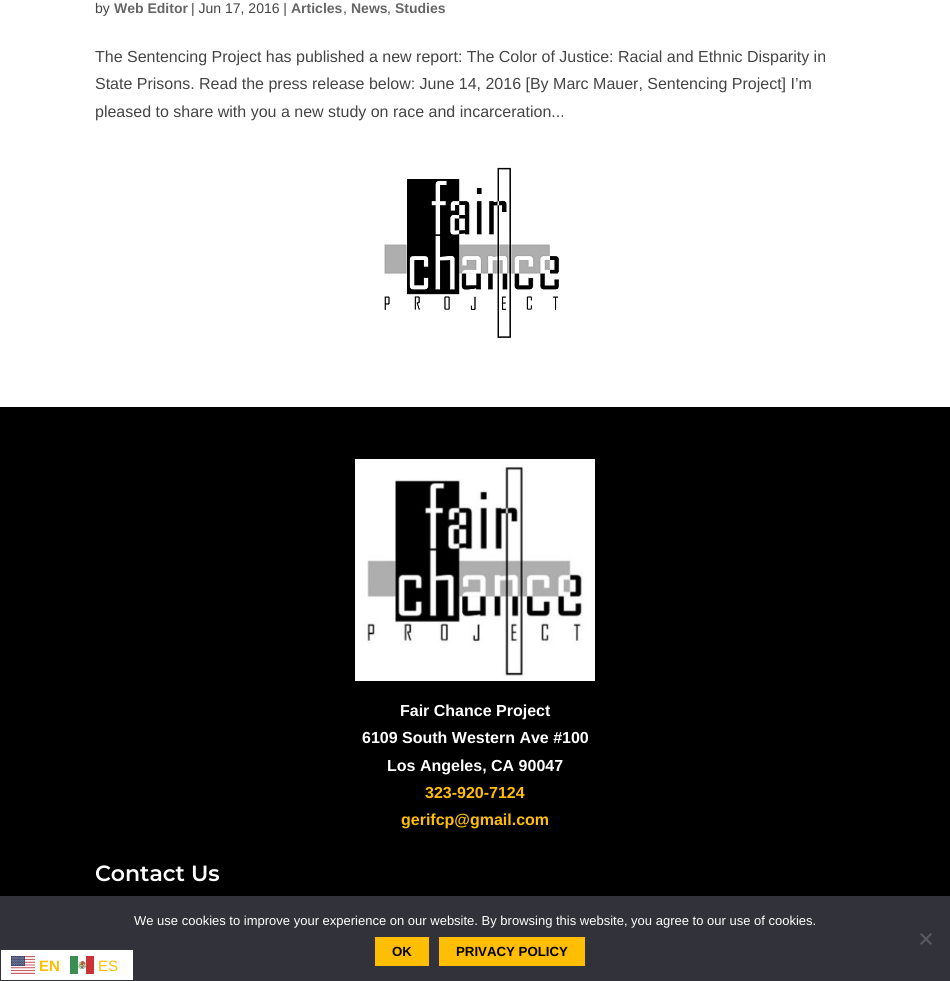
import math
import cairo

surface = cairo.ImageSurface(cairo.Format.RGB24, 950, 981)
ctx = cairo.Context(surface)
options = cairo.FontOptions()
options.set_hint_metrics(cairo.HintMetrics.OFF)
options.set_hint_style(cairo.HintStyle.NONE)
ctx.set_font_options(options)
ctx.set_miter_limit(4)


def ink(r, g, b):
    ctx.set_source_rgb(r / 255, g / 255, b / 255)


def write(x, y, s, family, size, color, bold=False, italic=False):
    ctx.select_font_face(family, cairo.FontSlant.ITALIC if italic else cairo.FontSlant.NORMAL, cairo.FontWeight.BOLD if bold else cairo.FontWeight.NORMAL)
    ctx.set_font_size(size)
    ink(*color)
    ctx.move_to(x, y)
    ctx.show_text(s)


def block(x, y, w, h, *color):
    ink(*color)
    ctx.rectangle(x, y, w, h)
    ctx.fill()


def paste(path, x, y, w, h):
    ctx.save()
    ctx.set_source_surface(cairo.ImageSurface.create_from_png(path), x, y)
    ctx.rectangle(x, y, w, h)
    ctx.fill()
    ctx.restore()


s1 = dict(family="Liberation Sans", size=14, color=(68, 68, 68))
s2 = dict(family="Liberation Sans", size=14, color=(102, 102, 102), bold=True)
s3 = dict(family="Liberation Sans", size=16, color=(68, 68, 68))
s4 = dict(family="Liberation Sans", size=16, color=(255, 255, 255), bold=True)
s5 = dict(family="Liberation Sans", size=16, color=(255, 190, 0), bold=True)
s6 = dict(family="Montserrat SemiBold", size=22, color=(255, 255, 255))
s7 = dict(family="Liberation Sans", size=13, color=(255, 255, 255))
s8 = dict(family="Liberation Sans", size=13.25, color=(0, 0, 0), bold=True)
s9 = dict(family="Liberation Sans", size=15, color=(255, 190, 0), bold=True)
s10 = dict(family="Liberation Sans", size=15, color=(255, 190, 0))

ink(255, 255, 255)
ctx.paint()
write(95, 13, "by", **s1)
write(114, 13, "Web Editor", **s2)
write(191, 13, "| Jun 17, 2016 |", **s1)
write(291, 13, "Articles", **s2)
write(343, 13, ",", **s1)
write(351, 13, "News", **s2)
write(387, 13, ",", **s1)
write(395, 13, "Studies", **s2)
write(95, 62, "The Sentencing Project has published a new report: The Color of Justice: Racial and Ethnic Disparity in", **s3)
write(95, 89, "State Prisons. Read the press release below: June 14, 2016 [By Marc Mauer, Sentencing Project] I’m", **s3)
write(95, 117, "pleased to share with you a new study on race and incarceration...", **s3)
paste("pic1.png", 384, 167, 176, 175)
block(0, 407, 950, 489, 0, 0, 0)
paste("pic2.png", 355, 459, 240, 222)
write(400, 716, "Fair Chance Project", **s4)
write(362, 743, "6109 South Western Ave #100", **s4)
write(387, 771, "Los Angeles, CA 90047", **s4)
write(425, 798, "323-920-7124", **s5)
write(401, 825, "gerifcp@gmail.com", **s5)
write(95, 881, "Contact Us", **s6)
block(0, 896, 950, 85, 50, 50, 58)
write(134, 925, "We use cookies to improve your experience on our website. By browsing this website, you agree to our use of cookies.", **s7)
ink(89, 89, 93)
ctx.new_path()
ctx.move_to(930.5, 933)
ctx.line_to(932, 934.5)
ctx.line_to(921.5, 945)
ctx.line_to(920, 943.5)
ctx.close_path()
ctx.fill()
ctx.new_path()
ctx.move_to(920, 934.5)
ctx.line_to(921.5, 933)
ctx.line_to(932, 943.5)
ctx.line_to(930.5, 945)
ctx.close_path()
ctx.fill()
block(375, 937, 54, 29, 255, 190, 1)
write(392, 956, "OK", **s8)
block(439, 937, 146, 29, 255, 190, 1)
write(456, 956, "PRIVACY POLICY", **s8)
block(1, 950, 132, 30, 255, 255, 255)
paste("pic3.png", 11, 956, 24, 18)
write(39, 971, "EN", **s9)
paste("pic4.png", 70, 956, 24, 18)
write(98, 971, "ES", **s10)
surface.write_to_png("screenshot.png")
